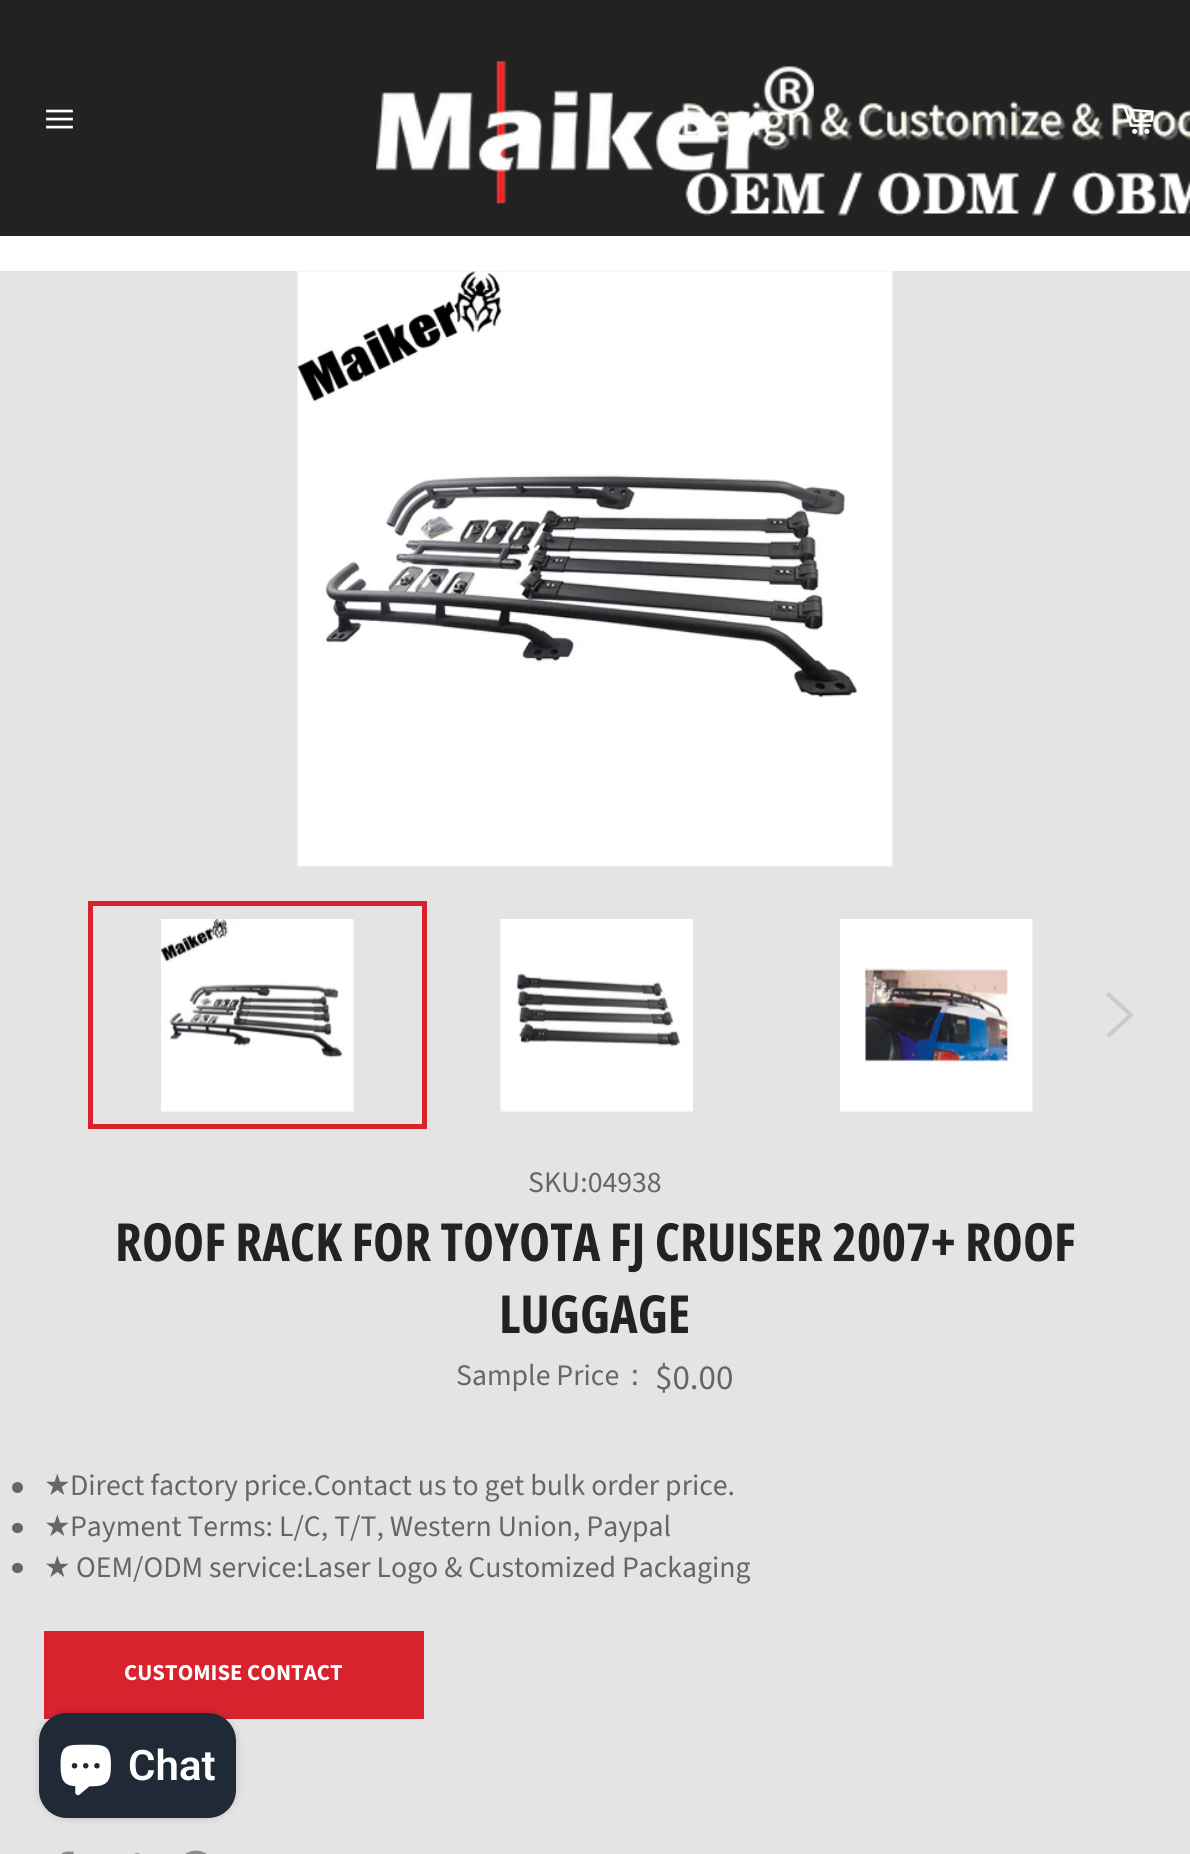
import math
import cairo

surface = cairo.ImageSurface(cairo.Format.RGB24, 1190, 1854)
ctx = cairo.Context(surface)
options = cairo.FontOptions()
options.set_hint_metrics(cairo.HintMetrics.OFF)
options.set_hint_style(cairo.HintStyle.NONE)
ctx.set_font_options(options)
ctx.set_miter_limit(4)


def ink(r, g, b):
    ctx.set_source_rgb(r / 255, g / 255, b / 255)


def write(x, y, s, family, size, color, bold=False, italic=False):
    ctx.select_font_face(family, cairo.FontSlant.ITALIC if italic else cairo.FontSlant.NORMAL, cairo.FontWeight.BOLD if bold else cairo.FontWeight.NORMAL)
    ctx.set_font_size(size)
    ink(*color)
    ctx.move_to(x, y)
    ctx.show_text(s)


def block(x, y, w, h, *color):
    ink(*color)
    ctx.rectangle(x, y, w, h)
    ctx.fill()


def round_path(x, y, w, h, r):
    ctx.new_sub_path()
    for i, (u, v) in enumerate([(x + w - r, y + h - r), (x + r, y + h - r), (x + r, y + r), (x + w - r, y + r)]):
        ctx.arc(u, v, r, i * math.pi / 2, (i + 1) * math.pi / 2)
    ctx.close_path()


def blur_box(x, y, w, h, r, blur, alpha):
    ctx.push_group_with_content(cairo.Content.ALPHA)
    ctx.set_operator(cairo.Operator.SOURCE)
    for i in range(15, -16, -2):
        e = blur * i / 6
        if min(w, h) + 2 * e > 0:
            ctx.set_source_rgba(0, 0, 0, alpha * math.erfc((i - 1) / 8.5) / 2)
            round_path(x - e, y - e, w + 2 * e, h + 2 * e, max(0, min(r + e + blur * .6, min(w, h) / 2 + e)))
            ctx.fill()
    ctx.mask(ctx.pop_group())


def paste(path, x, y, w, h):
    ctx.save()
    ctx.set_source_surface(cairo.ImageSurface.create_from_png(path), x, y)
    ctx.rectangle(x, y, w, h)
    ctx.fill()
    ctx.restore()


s1 = dict(family="Source Sans Pro", size=29.75, color=(102, 102, 102))
s2 = dict(family="Open Sans Condensed", size=52.5, color=(34, 34, 34), bold=True)
s3 = dict(family="WenQuanYi Zen Hei Medium", size=29.75, color=(102, 102, 102))
s4 = dict(family="Source Sans Pro", size=35, color=(102, 102, 102))
s5 = dict(family="DejaVu Sans", size=29.75, color=(102, 102, 102))
s6 = dict(family="Source Sans Pro", size=22.75, color=(255, 255, 255), bold=True)
s7 = dict(family="Roboto SemiBold", size=42, color=(255, 255, 255))

ink(34, 34, 34)
ctx.paint()
paste("pic1.png", 496, 60, 694, 156)
paste("pic2.png", 46, 109, 27, 20)
paste("pic3.png", 376, 66, 438, 106)
paste("pic4.png", 1118, 105, 36, 29)
block(0, 236, 1190, 35, 255, 255, 255)
block(0, 271, 1190, 1583, 228, 228, 228)
paste("pic5.png", 297, 271, 596, 596)
paste("pic6.png", 161, 919, 193, 193)
ctx.rectangle(90.5, 903.5, 334, 223)
ink(216, 35, 47)
ctx.set_line_width(5)
ctx.stroke()
paste("pic7.png", 500, 919, 193, 193)
paste("pic8.png", 840, 919, 193, 193)
ink(203, 203, 203)
ctx.new_path()
ctx.move_to(1106, 995)
ctx.line_to(1109, 992)
ctx.line_to(1134, 1015)
ctx.line_to(1109, 1038)
ctx.line_to(1106, 1035)
ctx.line_to(1128, 1015)
ctx.close_path()
ctx.fill()
write(528, 1192, "SKU:04938", **s1)
write(115, 1261, "ROOF RACK FOR TOYOTA FJ CRUISER 2007+ ROOF", **s2)
write(499, 1333, "LUGGAGE", **s2)
write(456, 1385, "Sample Price", **s1)
write(620, 1385, "：", **s3)
write(655, 1389, "$0.00", **s4)
ctx.new_path()
ctx.arc(17.5, 1487.5, 5.5, 0, 2 * math.pi)
ctx.fill()
write(44, 1495, "★", **s5)
write(70, 1495, "Direct factory price.Contact us to get bulk order price.", **s1)
round_path(12, 1523, 11, 10, 5)
ctx.fill()
write(44, 1536, "★", **s5)
write(70, 1536, "Payment Terms: L/C, T/T, Western Union, Paypal", **s1)
round_path(12, 1563, 11, 10, 5)
ctx.fill()
write(44, 1577, "★", **s5)
write(76, 1577, "OEM/ODM service:Laser Logo & Customized Packaging", **s1)
block(44, 1631, 380, 88, 216, 35, 47)
write(124, 1680, "CUSTOMISE CONTACT", **s6)
paste("pic9.png", 61, 1851, 13, 3)
paste("pic10.png", 134, 1853, 6, 1)
paste("pic11.png", 185, 1850, 22, 4)
ink(0, 0, 0)
blur_box(39, 1713, 197, 105, 28, 4.5, 0.15)
ink(32, 42, 54)
round_path(39, 1713, 197, 105, 28)
ctx.fill()
paste("pic12.png", 60, 1744, 51, 52)
write(128, 1780, "Chat", **s7)
surface.write_to_png("screenshot.png")
